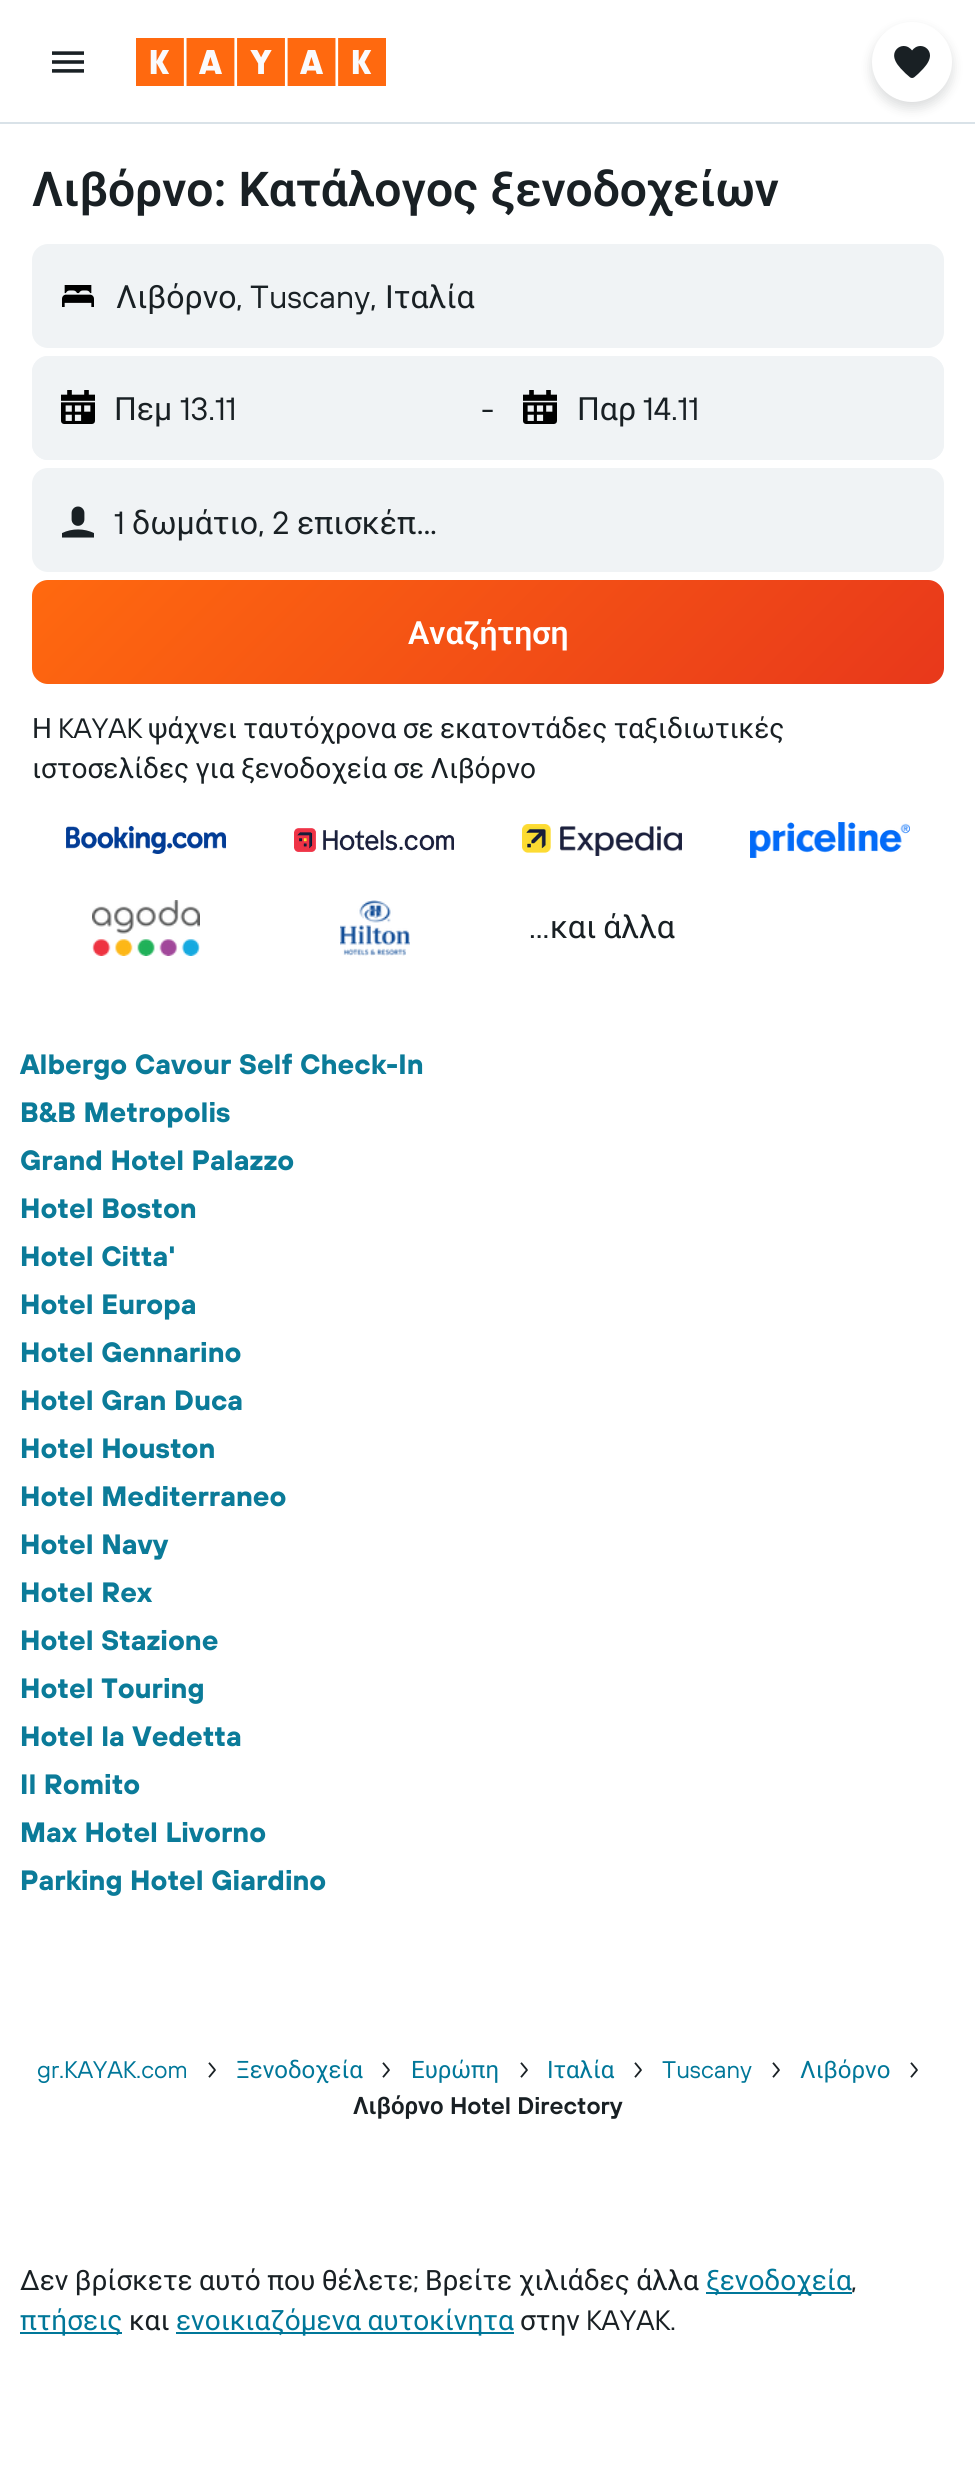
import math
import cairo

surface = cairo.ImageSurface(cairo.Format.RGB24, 975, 2476)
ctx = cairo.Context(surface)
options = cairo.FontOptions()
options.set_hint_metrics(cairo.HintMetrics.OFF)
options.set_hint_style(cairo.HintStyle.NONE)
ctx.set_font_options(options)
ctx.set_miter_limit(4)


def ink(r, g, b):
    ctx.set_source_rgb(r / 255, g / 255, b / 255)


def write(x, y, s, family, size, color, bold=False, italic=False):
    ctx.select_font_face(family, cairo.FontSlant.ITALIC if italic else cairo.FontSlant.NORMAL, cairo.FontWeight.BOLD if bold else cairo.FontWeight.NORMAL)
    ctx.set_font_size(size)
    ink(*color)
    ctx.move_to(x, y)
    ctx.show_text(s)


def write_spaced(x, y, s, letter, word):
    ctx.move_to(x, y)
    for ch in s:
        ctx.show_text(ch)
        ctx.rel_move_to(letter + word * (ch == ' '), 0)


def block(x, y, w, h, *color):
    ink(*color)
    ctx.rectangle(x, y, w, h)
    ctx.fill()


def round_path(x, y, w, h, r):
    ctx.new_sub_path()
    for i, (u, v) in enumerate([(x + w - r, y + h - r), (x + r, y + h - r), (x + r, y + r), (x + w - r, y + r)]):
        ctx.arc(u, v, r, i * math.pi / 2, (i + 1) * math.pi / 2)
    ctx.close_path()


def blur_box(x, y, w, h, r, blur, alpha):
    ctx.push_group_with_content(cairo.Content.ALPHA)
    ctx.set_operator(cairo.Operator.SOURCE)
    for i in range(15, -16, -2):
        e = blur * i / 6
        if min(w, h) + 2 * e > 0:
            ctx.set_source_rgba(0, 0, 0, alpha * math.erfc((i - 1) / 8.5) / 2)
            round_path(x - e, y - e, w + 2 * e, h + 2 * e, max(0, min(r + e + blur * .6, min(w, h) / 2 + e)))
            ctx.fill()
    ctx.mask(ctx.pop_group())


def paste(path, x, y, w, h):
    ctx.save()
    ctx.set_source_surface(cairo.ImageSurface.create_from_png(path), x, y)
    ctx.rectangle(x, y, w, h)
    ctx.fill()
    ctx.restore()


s1 = dict(family="Roboto SemiBold", size=48, color=(25, 32, 36))
s2 = dict(family="Roboto", size=32, color=(25, 32, 36))
s3 = dict(family="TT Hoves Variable", size=32, color=(25, 32, 36))
s4 = dict(family="Roboto SemiBold", size=32, color=(255, 255, 255))
s5 = dict(family="Roboto", size=28, color=(25, 32, 36))
s6 = dict(family="TT Hoves Variable", size=28, color=(25, 32, 36))
s7 = dict(family="TT Hoves Variable", size=28, color=(11, 123, 153), bold=True)
s8 = dict(family="TT Hoves Variable", size=24, color=(0, 119, 153))
s9 = dict(family="Roboto", size=24, color=(0, 119, 153))
s10 = dict(family="Roboto SemiBold", size=24, color=(25, 32, 36))
s11 = dict(family="TT Hoves Variable SemiBold", size=24, color=(25, 32, 36))
s12 = dict(family="Roboto", size=28, color=(0, 119, 153))

ink(255, 255, 255)
ctx.paint()
block(0, 122, 975, 2, 217, 226, 232)
paste("pic1.png", 52, 51, 32, 22)
paste("pic2.png", 136, 38, 250, 48)
ink(25, 32, 36)
blur_box(872, 28, 80, 80, 40, 6, 0.16)
ink(255, 255, 255)
ctx.arc(912, 62, 40, 0, 2 * math.pi)
ctx.fill()
paste("pic3.png", 894, 46, 36, 32)
write(32, 206, "Λιβόρνο: Κατάλογος ξενοδοχείων", **s1)
ink(240, 243, 245)
round_path(33, 245, 910, 102, 15)
ctx.fill_preserve()
ctx.stroke()
paste("pic4.png", 62, 285, 32, 22)
write(116, 308, "Λιβόρνο", **s2)
write(236, 308, ", Tuscany,", **s3)
write(385, 308, "Ιταλία", **s2)
ink(240, 243, 245)
round_path(32, 356, 912, 104, 16)
ctx.fill()
round_path(32, 356, 450, 104, 16)
ctx.fill()
paste("pic5.png", 61, 390, 34, 34)
write(114, 420, "Πεμ", **s2)
write(180, 420, "13.11", **s3)
write(481, 420, "-", **s3)
ink(240, 243, 245)
round_path(494, 356, 450, 104, 16)
ctx.fill()
paste("pic5.png", 523, 390, 34, 34)
write(577, 420, "Παρ", **s2)
write(643, 420, "14.11", **s3)
ink(240, 243, 245)
round_path(32, 468, 912, 104, 16)
ctx.fill()
paste("pic6.png", 62, 506, 32, 32)
write(114, 534, "1", **s3)
write(132, 534, "δωμάτιο", **s2)
write(258, 534, ", 2", **s3)
write(297, 534, "επισκέπ…", **s2)
gradient = cairo.LinearGradient(234, 378, 742, 886)
gradient.add_color_stop_rgba(0, 1, 0.412, 0.059, 1)
gradient.add_color_stop_rgba(1, 0.91, 0.22, 0.106, 1)
ctx.set_source(gradient)
round_path(32, 580, 912, 104, 16)
ctx.fill()
write(408, 644, "Αναζήτηση", **s4)
write(32, 738, "Η", **s5)
write(58, 738, "KAYAK", **s6)
ctx.select_font_face("Roboto")
write_spaced(148, 738, "ψάχνει ταυτόχρονα σε εκατοντάδες ταξιδιωτικές", 0, -0.5)
write_spaced(32, 778, "ιστοσελίδες για ξενοδοχεία σε Λιβόρνο", 0, -0.5)
paste("pic7.png", 66, 826, 160, 28)
paste("pic8.png", 294, 828, 160, 24)
paste("pic9.png", 522, 824, 160, 32)
paste("pic10.png", 750, 822, 160, 36)
paste("pic11.png", 92, 900, 108, 56)
paste("pic12.png", 340, 900, 70, 56)
write(529, 938, "...", **s3)
ctx.select_font_face("Roboto")
write_spaced(550, 938, "και άλλα", 0, -1)
write(20, 1074, "Albergo Cavour Self Check-In", **s7)
write(20, 1122, "B&B Metropolis", **s7)
write(20, 1170, "Grand Hotel Palazzo", **s7)
write(20, 1218, "Hotel Boston", **s7)
write(20, 1266, "Hotel Citta'", **s7)
write(20, 1314, "Hotel Europa", **s7)
write(20, 1362, "Hotel Gennarino", **s7)
write(20, 1410, "Hotel Gran Duca", **s7)
write(20, 1458, "Hotel Houston", **s7)
write(20, 1506, "Hotel Mediterraneo", **s7)
write(20, 1554, "Hotel Navy", **s7)
write(20, 1602, "Hotel Rex", **s7)
write(20, 1650, "Hotel Stazione", **s7)
write(20, 1698, "Hotel Touring", **s7)
write(20, 1746, "Hotel la Vedetta", **s7)
write(20, 1794, "Il Romito", **s7)
write(20, 1842, "Max Hotel Livorno", **s7)
write(20, 1890, "Parking Hotel Giardino", **s7)
write(37, 2078, "gr.KAYAK.com", **s8)
paste("pic13.png", 208, 2062, 8, 16)
write(236, 2078, "Ξενοδοχεία", **s9)
paste("pic13.png", 382, 2062, 8, 16)
write(411, 2078, "Ευρώπη", **s9)
paste("pic13.png", 520, 2062, 8, 16)
write(547, 2078, "Ιταλία", **s9)
paste("pic13.png", 634, 2062, 8, 16)
write(662, 2078, "Tuscany", **s8)
paste("pic13.png", 772, 2062, 8, 16)
write(800, 2078, "Λιβόρνο", **s9)
paste("pic13.png", 910, 2062, 8, 16)
write(353, 2114, "Λιβόρνο", **s10)
write(450, 2114, "Hotel Directory", **s11)
ctx.select_font_face("Roboto")
ctx.set_font_size(28)
write_spaced(20, 2290, "Δεν βρίσκετε αυτό που θέλετε", 0, -0.5)
write(413, 2290, ";", **s6)
ctx.select_font_face("Roboto")
write_spaced(425, 2290, "Βρείτε χιλιάδες άλλα", 0, -0.5)
block(706, 2292, 146, 2, 0, 119, 153)
write(706, 2290, "ξενοδοχεία", **s12)
write(851, 2290, ",", **s6)
block(20, 2332, 102, 2, 0, 119, 153)
write(20, 2330, "πτήσεις", **s12)
write(129, 2330, "και", **s5)
block(176, 2332, 338, 2, 0, 119, 153)
write_spaced(176, 2330, "ενοικιαζόμενα αυτοκίνητα", 0, -0.5)
write(520, 2330, "στην", **s5)
write(586, 2330, "KAYAK.", **s6)
surface.write_to_png("screenshot.png")
